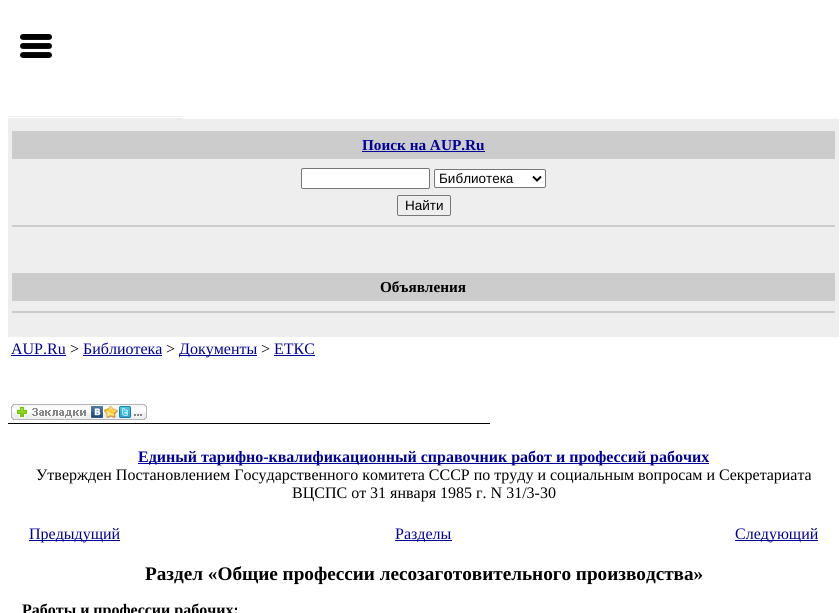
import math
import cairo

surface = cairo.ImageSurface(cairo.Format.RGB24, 840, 613)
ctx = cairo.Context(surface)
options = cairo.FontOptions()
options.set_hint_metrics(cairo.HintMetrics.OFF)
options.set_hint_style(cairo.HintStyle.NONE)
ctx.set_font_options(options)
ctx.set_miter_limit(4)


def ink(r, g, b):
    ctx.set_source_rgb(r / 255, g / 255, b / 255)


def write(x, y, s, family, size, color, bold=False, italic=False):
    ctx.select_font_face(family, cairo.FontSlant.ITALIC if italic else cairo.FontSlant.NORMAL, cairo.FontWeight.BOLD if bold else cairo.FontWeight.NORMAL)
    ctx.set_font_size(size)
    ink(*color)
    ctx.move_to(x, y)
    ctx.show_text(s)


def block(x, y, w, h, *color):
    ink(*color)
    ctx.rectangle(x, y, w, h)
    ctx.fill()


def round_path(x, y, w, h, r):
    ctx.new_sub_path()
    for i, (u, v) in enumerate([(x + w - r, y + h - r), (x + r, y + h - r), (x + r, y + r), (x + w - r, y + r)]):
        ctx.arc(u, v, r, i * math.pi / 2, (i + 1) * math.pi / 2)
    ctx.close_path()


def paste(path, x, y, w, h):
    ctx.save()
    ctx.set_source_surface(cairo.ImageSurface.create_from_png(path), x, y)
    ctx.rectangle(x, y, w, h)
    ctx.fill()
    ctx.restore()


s1 = dict(family="Liberation Serif", size=15.25, color=(0, 0, 153), bold=True)
s2 = dict(family="Liberation Sans", size=13.5, color=(0, 0, 0))
s3 = dict(family="Liberation Serif", size=15.25, color=(0, 0, 0), bold=True)
s4 = dict(family="Liberation Serif", size=16, color=(0, 0, 153))
s5 = dict(family="Liberation Serif", size=16, color=(0, 0, 0))
s6 = dict(family="Liberation Serif", size=16, color=(0, 0, 153), bold=True)
s7 = dict(family="Liberation Serif", size=19.2, color=(0, 0, 0), bold=True)
s8 = dict(family="Liberation Serif", size=16, color=(0, 0, 0), bold=True)

ink(255, 255, 255)
ctx.paint()
block(8, 116, 175, 1, 238, 238, 238)
block(8, 118, 175, 1, 238, 238, 238)
block(8, 119, 831, 218, 238, 238, 238)
block(12, 225, 823, 2, 204, 204, 204)
block(12, 131, 823, 28, 204, 204, 204)
write(362, 150, "Поиск на AUP.Ru", **s1)
block(362, 151, 123, 1, 0, 0, 153)
ink(255, 255, 255)
round_path(301.5, 168.5, 128, 20, 1.5)
ctx.fill_preserve()
ink(118, 118, 118)
ctx.set_line_width(1)
ctx.stroke()
ink(255, 255, 255)
round_path(434.5, 169.5, 111, 18, 1.5)
ctx.fill_preserve()
ink(118, 118, 118)
ctx.stroke()
ctx.new_path()
ctx.move_to(533, 176.5)
ctx.line_to(537, 180.5)
ctx.line_to(541, 176.5)
ink(0, 0, 0)
ctx.set_line_width(2)
ctx.stroke()
write(439, 183, "Библиотека", **s2)
round_path(397.5, 195.5, 53, 20, 1.5)
ink(118, 118, 118)
ctx.set_line_width(1)
ctx.stroke()
write(405, 210, "Найти", **s2)
block(12, 311, 823, 2, 204, 204, 204)
block(12, 273, 823, 28, 204, 204, 204)
write(380, 292, "Объявления", **s3)
block(8, 423, 482, 1, 0, 0, 0)
paste("pic1.png", 20, 34, 32, 24)
write(11, 354, "AUP.Ru", **s4)
block(11, 355, 55, 1, 0, 0, 153)
write(70, 354, ">", **s5)
write(83, 354, "Библиотека", **s4)
block(83, 355, 79, 1, 0, 0, 153)
write(166, 354, ">", **s5)
block(179, 355, 78, 1, 0, 0, 153)
write(179, 354, "Документы", **s4)
write(261, 354, ">", **s5)
write(274, 354, "ЕТКС", **s4)
block(274, 355, 41, 1, 0, 0, 153)
paste("pic2.png", 11, 404, 136, 16)
block(138, 463, 571, 1, 0, 0, 153)
write(138, 462, "Единый тарифно-квалификационный справочник работ и профессий рабочиx", **s6)
write(36, 480, "Утвержден Постановлением Государственного комитета СССР по труду и социальным вопросам и Секретариата", **s5)
write(292, 498, "ВЦСПС от 31 января 1985 г. N 31/3-30", **s5)
block(29, 540, 91, 1, 0, 0, 153)
write(29, 539, "Предыдущий", **s4)
block(395, 540, 57, 1, 0, 0, 153)
write(395, 539, "Разделы", **s4)
block(735, 540, 83, 1, 0, 0, 153)
write(735, 539, "Следующий", **s4)
write(145, 580, "Раздел «Общие профессии лесозаготовительного производства»", **s7)
write(22, 615, "Работы и профессии рабочиx:", **s8)
surface.write_to_png("screenshot.png")
